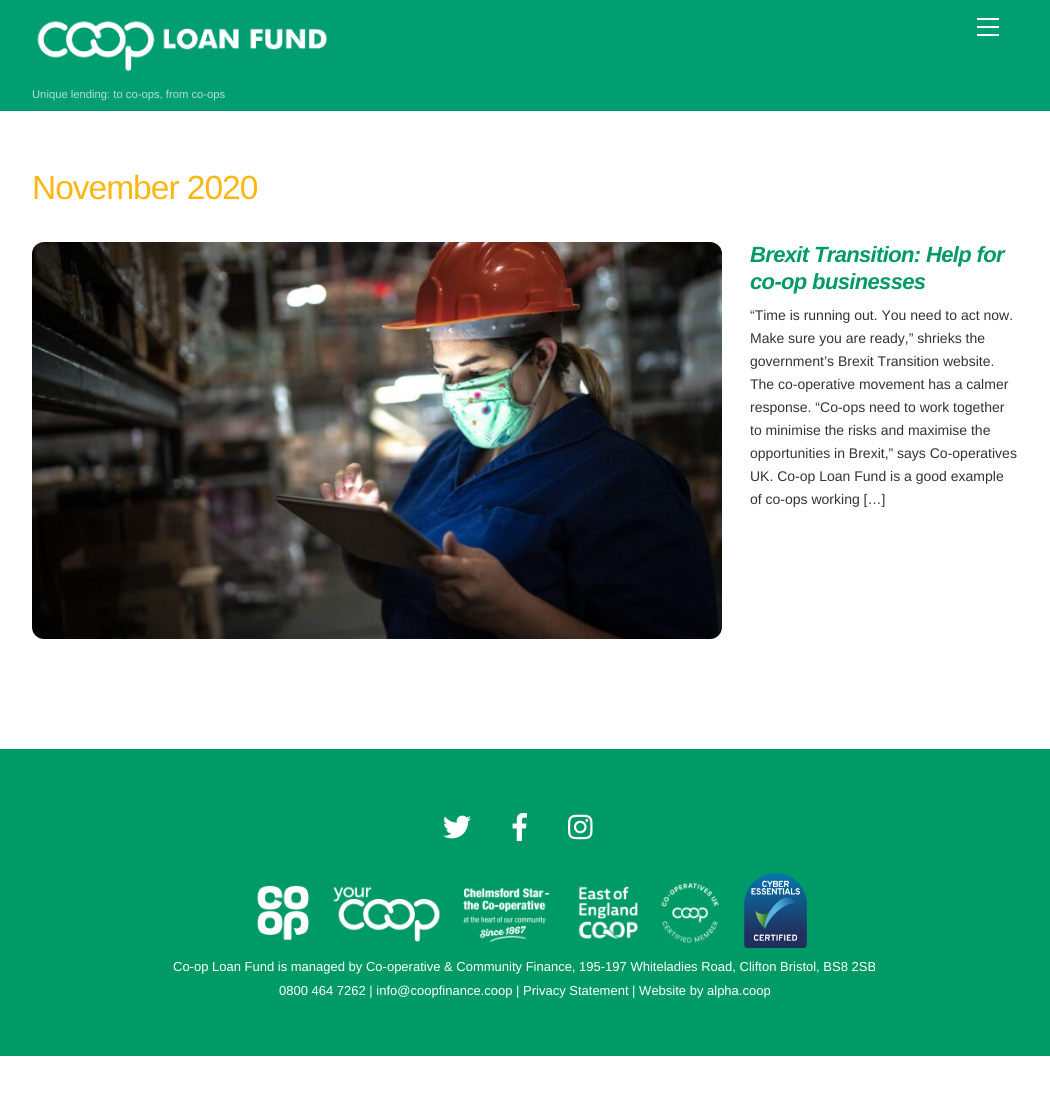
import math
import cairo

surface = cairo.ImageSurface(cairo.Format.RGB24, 1050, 1099)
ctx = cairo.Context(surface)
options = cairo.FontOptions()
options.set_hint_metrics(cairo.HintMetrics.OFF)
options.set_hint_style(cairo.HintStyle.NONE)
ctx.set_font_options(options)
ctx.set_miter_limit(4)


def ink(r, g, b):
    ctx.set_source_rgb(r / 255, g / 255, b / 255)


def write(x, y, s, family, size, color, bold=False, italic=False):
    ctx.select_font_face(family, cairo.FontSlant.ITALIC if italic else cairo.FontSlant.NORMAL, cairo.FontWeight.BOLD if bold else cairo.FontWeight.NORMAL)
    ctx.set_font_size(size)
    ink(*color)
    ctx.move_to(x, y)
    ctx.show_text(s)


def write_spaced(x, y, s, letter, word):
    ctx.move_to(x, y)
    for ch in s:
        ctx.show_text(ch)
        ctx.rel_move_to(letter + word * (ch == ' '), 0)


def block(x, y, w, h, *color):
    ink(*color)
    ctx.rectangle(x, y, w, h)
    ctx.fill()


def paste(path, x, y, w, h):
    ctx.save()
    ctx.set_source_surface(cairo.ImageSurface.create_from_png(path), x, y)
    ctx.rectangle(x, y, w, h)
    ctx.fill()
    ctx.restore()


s1 = dict(family="Liberation Sans", size=11.25, color=(179, 226, 212))
s2 = dict(family="Liberation Sans", size=14, color=(51, 51, 51))
s3 = dict(family="Liberation Sans", size=13, color=(255, 255, 255))

ink(255, 255, 255)
ctx.paint()
block(0, 0, 1050, 110, 0, 158, 113)
block(0, 110, 1050, 1, 0, 150, 107)
block(977, 34, 22, 2, 255, 255, 255)
block(977, 18, 22, 2, 255, 255, 255)
block(977, 26, 22, 2, 255, 255, 255)
paste("pic1.png", 37, 21, 290, 51)
write(32, 98, "Unique lending: to co-ops, from co-ops", **s1)
ctx.set_font_size(33.5)
ink(255, 182, 18)
write_spaced(32, 199, "November 2020", -1, 0)
paste("pic2.png", 32, 242, 690, 397)
ctx.select_font_face("Liberation Sans", cairo.FontSlant.ITALIC, cairo.FontWeight.BOLD)
ctx.set_font_size(22)
ink(0, 154, 103)
write_spaced(750, 262, "Brexit Transition: Help for", -0.65, 0)
write_spaced(750, 289, "co-op businesses", -0.65, 0)
write(750, 320, "“Time is running out. You need to act now.", **s2)
write(750, 343, "Make sure you are ready,” shrieks the", **s2)
write(750, 366, "government’s Brexit Transition website.", **s2)
write(750, 389, "The co-operative movement has a calmer", **s2)
write(750, 412, "response. “Co-ops need to work together", **s2)
write(750, 435, "to minimise the risks and maximise the", **s2)
write(750, 458, "opportunities in Brexit,” says Co-operatives", **s2)
write(750, 481, "UK. Co-op Loan Fund is a good example", **s2)
write(750, 504, "of co-ops working […]", **s2)
block(0, 750, 1050, 306, 0, 154, 103)
block(0, 749, 1050, 1, 0, 146, 98)
paste("pic3.png", 443, 815, 28, 24)
paste("pic4.png", 512, 813, 15, 28)
paste("pic5.png", 568, 814, 25, 26)
paste("pic6.png", 257, 883, 462, 60)
paste("pic7.png", 744, 873, 63, 75)
write(173, 971, "Co-op Loan Fund is managed by Co-operative & Community Finance, 195-197 Whiteladies Road, Clifton Bristol, BS8 2SB", **s3)
write(279, 995, "0800 464 7262 | info@coopfinance.coop | Privacy Statement | Website by alpha.coop", **s3)
surface.write_to_png("screenshot.png")
